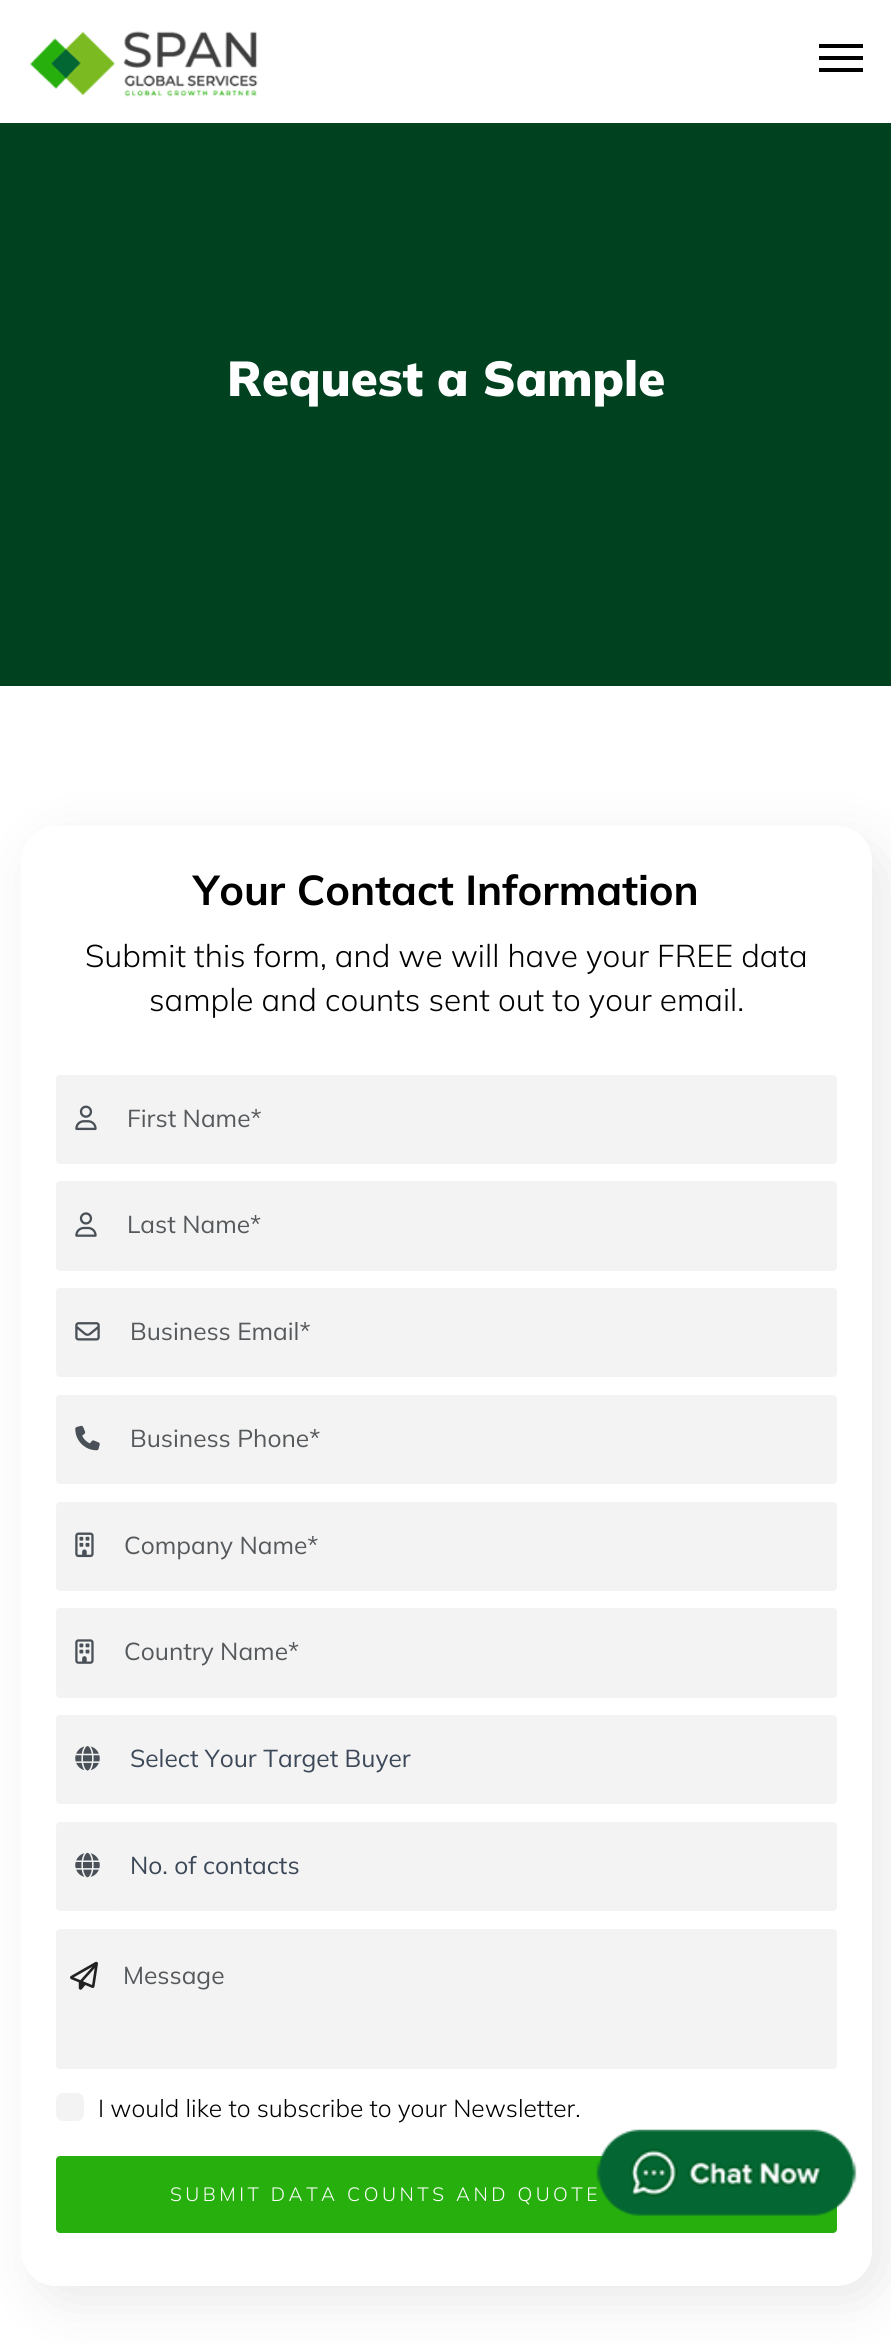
import math
import cairo

surface = cairo.ImageSurface(cairo.Format.RGB24, 891, 2345)
ctx = cairo.Context(surface)
options = cairo.FontOptions()
options.set_hint_metrics(cairo.HintMetrics.OFF)
options.set_hint_style(cairo.HintStyle.NONE)
ctx.set_font_options(options)
ctx.set_miter_limit(4)


def ink(r, g, b):
    ctx.set_source_rgb(r / 255, g / 255, b / 255)


def write(x, y, s, family, size, color, bold=False, italic=False):
    ctx.select_font_face(family, cairo.FontSlant.ITALIC if italic else cairo.FontSlant.NORMAL, cairo.FontWeight.BOLD if bold else cairo.FontWeight.NORMAL)
    ctx.set_font_size(size)
    ink(*color)
    ctx.move_to(x, y)
    ctx.show_text(s)


def write_spaced(x, y, s, letter, word):
    ctx.move_to(x, y)
    for ch in s:
        ctx.show_text(ch)
        ctx.rel_move_to(letter + word * (ch == ' '), 0)


def block(x, y, w, h, *color):
    ink(*color)
    ctx.rectangle(x, y, w, h)
    ctx.fill()


def round_path(x, y, w, h, r):
    ctx.new_sub_path()
    for i, (u, v) in enumerate([(x + w - r, y + h - r), (x + r, y + h - r), (x + r, y + r), (x + w - r, y + r)]):
        ctx.arc(u, v, r, i * math.pi / 2, (i + 1) * math.pi / 2)
    ctx.close_path()


def blur_box(x, y, w, h, r, blur, alpha):
    ctx.push_group_with_content(cairo.Content.ALPHA)
    ctx.set_operator(cairo.Operator.SOURCE)
    for i in range(15, -16, -2):
        e = blur * i / 6
        if min(w, h) + 2 * e > 0:
            ctx.set_source_rgba(0, 0, 0, alpha * math.erfc((i - 1) / 8.5) / 2)
            round_path(x - e, y - e, w + 2 * e, h + 2 * e, max(0, min(r + e + blur * .6, min(w, h) / 2 + e)))
            ctx.fill()
    ctx.mask(ctx.pop_group())


def paste(path, x, y, w, h):
    ctx.save()
    ctx.set_source_surface(cairo.ImageSurface.create_from_png(path), x, y)
    ctx.rectangle(x, y, w, h)
    ctx.fill()
    ctx.restore()


s1 = dict(family="Mulish Black", size=49, color=(255, 255, 255))
s2 = dict(family="Mulish", size=41.75, color=(0, 0, 0), bold=True)
s3 = dict(family="Mulish Light", size=31.5, color=(0, 0, 0))
s4 = dict(family="Mulish", size=24.5, color=(86, 89, 92))
s5 = dict(family="Mulish", size=24.5, color=(60, 72, 88))
s6 = dict(family="Mulish Light", size=24.5, color=(0, 0, 0))

ink(255, 255, 255)
ctx.paint()
paste("pic1.png", 29, 31, 229, 66)
block(819, 44, 44, 4, 0, 0, 0)
block(819, 56, 44, 4, 0, 0, 0)
block(819, 68, 44, 4, 0, 0, 0)
block(0, 123, 891, 563, 0, 65, 32)
write(227, 396, "Request a Sample", **s1)
ink(0, 0, 0)
blur_box(35, 842, 851, 1459, 35, 27, 0.09)
ink(255, 255, 255)
round_path(21, 826, 851, 1460, 35)
ctx.fill()
write(193, 905, "Your Contact Information", **s2)
write(85, 967, "Submit this form, and we will have your FREE data", **s3)
write(149, 1011, "sample and counts sent out to your email.", **s3)
ink(243, 243, 243)
round_path(56, 1075, 61, 89, 4)
ctx.fill()
paste("pic2.png", 75, 1105, 22, 26)
ctx.new_path()
ctx.move_to(114, 1075)
ctx.line_to(833, 1075)
ctx.curve_to(835, 1075, 837, 1077, 837, 1079)
ctx.line_to(837, 1160)
ctx.curve_to(837, 1162, 835, 1164, 833, 1164)
ctx.line_to(114, 1164)
ctx.close_path()
ctx.fill()
write(127, 1127, "First Name*", **s4)
ink(243, 243, 243)
round_path(56, 1181, 61, 90, 4)
ctx.fill()
paste("pic3.png", 75, 1212, 22, 25)
ctx.new_path()
ctx.move_to(114, 1181)
ctx.line_to(833, 1181)
ctx.curve_to(835, 1181, 837, 1183, 837, 1185)
ctx.line_to(837, 1267)
ctx.curve_to(837, 1269, 835, 1271, 833, 1271)
ctx.line_to(114, 1271)
ctx.close_path()
ctx.fill()
write(127, 1233, "Last Name*", **s4)
ink(243, 243, 243)
round_path(56, 1288, 63, 89, 4)
ctx.fill()
paste("pic4.png", 75, 1322, 25, 19)
ctx.new_path()
ctx.move_to(116, 1288)
ctx.line_to(833, 1288)
ctx.curve_to(835, 1288, 837, 1290, 837, 1292)
ctx.line_to(837, 1373)
ctx.curve_to(837, 1375, 835, 1377, 833, 1377)
ctx.line_to(116, 1377)
ctx.close_path()
ctx.fill()
write(130, 1340, "Business Email*", **s4)
ink(243, 243, 243)
round_path(56, 1395, 63, 89, 4)
ctx.fill()
paste("pic5.png", 75, 1425, 25, 26)
ctx.new_path()
ctx.move_to(116, 1395)
ctx.line_to(833, 1395)
ctx.curve_to(835, 1395, 837, 1397, 837, 1399)
ctx.line_to(837, 1480)
ctx.curve_to(837, 1482, 835, 1484, 833, 1484)
ctx.line_to(116, 1484)
ctx.close_path()
ctx.fill()
write(130, 1447, "Business Phone*", **s4)
ink(243, 243, 243)
round_path(56, 1502, 58, 89, 4)
ctx.fill()
paste("pic6.png", 75, 1532, 19, 26)
ctx.new_path()
ctx.move_to(110, 1502)
ctx.line_to(833, 1502)
ctx.curve_to(835, 1502, 837, 1504, 837, 1506)
ctx.line_to(837, 1587)
ctx.curve_to(837, 1589, 835, 1591, 833, 1591)
ctx.line_to(110, 1591)
ctx.close_path()
ctx.fill()
write(124, 1554, "Company Name*", **s4)
ink(243, 243, 243)
round_path(56, 1608, 58, 90, 4)
ctx.fill()
paste("pic7.png", 75, 1639, 19, 25)
ctx.new_path()
ctx.move_to(110, 1608)
ctx.line_to(833, 1608)
ctx.curve_to(835, 1608, 837, 1610, 837, 1612)
ctx.line_to(837, 1694)
ctx.curve_to(837, 1696, 835, 1698, 833, 1698)
ctx.line_to(110, 1698)
ctx.close_path()
ctx.fill()
write(124, 1660, "Country Name*", **s4)
ink(243, 243, 243)
round_path(56, 1715, 63, 89, 4)
ctx.fill()
paste("pic8.png", 75, 1746, 25, 25)
ctx.new_path()
ctx.move_to(116, 1715)
ctx.line_to(833, 1715)
ctx.curve_to(835, 1715, 837, 1717, 837, 1719)
ctx.line_to(837, 1800)
ctx.curve_to(837, 1802, 835, 1804, 833, 1804)
ctx.line_to(116, 1804)
ctx.close_path()
ctx.fill()
write(130, 1767, "Select Your Target Buyer", **s5)
ink(243, 243, 243)
round_path(56, 1822, 63, 89, 4)
ctx.fill()
paste("pic9.png", 75, 1852, 25, 26)
ctx.new_path()
ctx.move_to(116, 1822)
ctx.line_to(833, 1822)
ctx.curve_to(835, 1822, 837, 1824, 837, 1826)
ctx.line_to(837, 1907)
ctx.curve_to(837, 1909, 835, 1911, 833, 1911)
ctx.line_to(116, 1911)
ctx.close_path()
ctx.fill()
write(130, 1874, "No. of contacts", **s5)
ink(243, 243, 243)
round_path(56, 1929, 781, 140, 4)
ctx.fill()
paste("pic10.png", 70, 1961, 28, 29)
write(123, 1984, "Message", **s4)
ink(243, 243, 243)
round_path(56, 2093, 28, 28, 7)
ctx.fill()
write(98, 2117, "I would like to subscribe to your Newsletter.", **s6)
ink(39, 175, 13)
round_path(57, 2157, 779, 75, 3)
ctx.fill_preserve()
ctx.stroke()
ctx.set_font_size(19.25)
ink(255, 255, 255)
write_spaced(170, 2201, "SUBMIT DATA COUNTS AND QUOTE", 3.5, 0)
paste("pic11.png", 596, 2129, 261, 87)
surface.write_to_png("screenshot.png")
